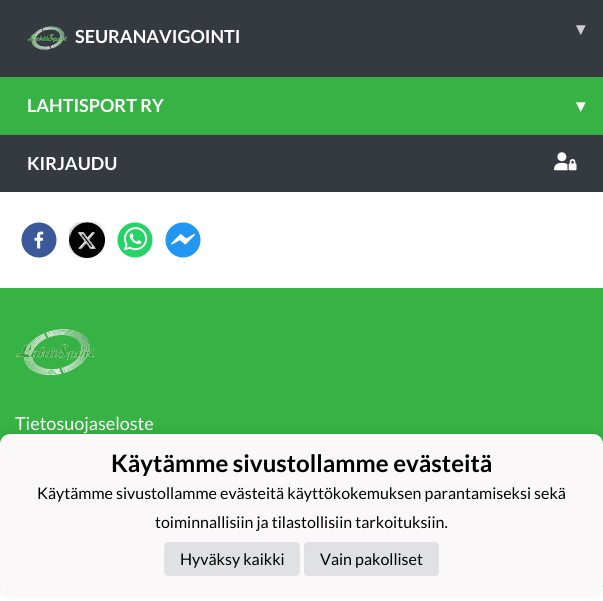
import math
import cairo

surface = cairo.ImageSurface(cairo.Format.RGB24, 603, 601)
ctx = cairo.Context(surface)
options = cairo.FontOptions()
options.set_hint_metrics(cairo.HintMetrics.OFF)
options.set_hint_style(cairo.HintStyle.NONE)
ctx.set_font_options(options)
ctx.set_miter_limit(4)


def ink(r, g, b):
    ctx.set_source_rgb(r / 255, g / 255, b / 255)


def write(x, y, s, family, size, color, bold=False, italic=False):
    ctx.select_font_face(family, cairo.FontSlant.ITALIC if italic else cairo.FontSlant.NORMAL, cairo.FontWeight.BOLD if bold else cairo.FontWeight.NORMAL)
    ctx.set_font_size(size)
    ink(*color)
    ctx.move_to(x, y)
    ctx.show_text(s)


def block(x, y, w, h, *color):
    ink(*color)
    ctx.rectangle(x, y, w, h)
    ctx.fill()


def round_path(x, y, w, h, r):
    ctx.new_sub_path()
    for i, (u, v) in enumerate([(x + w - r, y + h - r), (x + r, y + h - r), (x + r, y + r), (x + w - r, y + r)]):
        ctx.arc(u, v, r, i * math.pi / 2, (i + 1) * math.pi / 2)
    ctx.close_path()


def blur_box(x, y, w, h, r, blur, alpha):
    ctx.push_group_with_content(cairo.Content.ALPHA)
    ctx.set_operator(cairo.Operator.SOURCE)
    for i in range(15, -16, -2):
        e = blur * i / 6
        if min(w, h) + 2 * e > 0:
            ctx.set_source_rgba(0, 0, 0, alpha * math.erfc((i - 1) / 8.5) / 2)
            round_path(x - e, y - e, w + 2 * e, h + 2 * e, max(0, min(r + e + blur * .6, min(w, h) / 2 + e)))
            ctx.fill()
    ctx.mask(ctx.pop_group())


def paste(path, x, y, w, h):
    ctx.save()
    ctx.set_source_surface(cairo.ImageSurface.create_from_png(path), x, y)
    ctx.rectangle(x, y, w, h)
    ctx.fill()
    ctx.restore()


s1 = dict(family="Lato", size=18, color=(255, 255, 255), bold=True)
s2 = dict(family="DejaVu Sans", size=18, color=(204, 206, 207), bold=True)
s3 = dict(family="DejaVu Sans", size=18, color=(255, 255, 255), bold=True)
s4 = dict(family="Lato", size=18, color=(255, 255, 255))
s5 = dict(family="Lato", size=24, color=(0, 0, 0), bold=True)
s6 = dict(family="Lato", size=16, color=(0, 0, 0))

ink(255, 255, 255)
ctx.paint()
block(0, 0, 603, 76, 52, 58, 64)
block(0, 76, 603, 1, 49, 55, 61)
paste("pic1.png", 27, 26, 40, 24)
write(75, 43, "SEURANAVIGOINTI", **s1)
write(576, 35, "▾", **s2)
block(0, 77, 603, 57, 55, 179, 70)
block(0, 134, 603, 1, 52, 170, 67)
write(27, 112, "LAHTISPORT RY", **s1)
write(576, 112, "▾", **s3)
block(0, 135, 603, 56, 52, 58, 64)
block(0, 191, 603, 1, 49, 55, 61)
write(27, 170, "KIRJAUDU", **s1)
paste("pic2.png", 554, 152, 23, 19)
paste("pic3.png", 21, 222, 36, 36)
paste("pic4.png", 69, 222, 36, 36)
paste("pic5.png", 117, 222, 36, 36)
paste("pic6.png", 165, 222, 36, 36)
block(0, 288, 603, 299, 55, 179, 70)
paste("pic7.png", 16, 329, 79, 46)
write(15, 430, "Tietosuojaseloste", **s4)
ink(0, 0, 0)
blur_box(0, 432, 603, 161, 10, 5, 0.1)
ink(250, 248, 248)
round_path(0, 434, 603, 161, 10)
ctx.fill()
write(111, 472, "Käytämme sivustollamme evästeitä", **s5)
write(37, 499, "Käytämme sivustollamme evästeitä käyttökokemuksen parantamiseksi sekä", **s6)
write(155, 528, "toiminnallisiin ja tilastollisiin tarkoituksiin.", **s6)
ink(223, 225, 229)
round_path(164, 542, 136, 34, 4)
ctx.fill()
write(180, 565, "Hyväksy kaikki", **s6)
ink(223, 225, 229)
round_path(304, 542, 135, 34, 4)
ctx.fill()
write(320, 565, "Vain pakolliset", **s6)
surface.write_to_png("screenshot.png")
